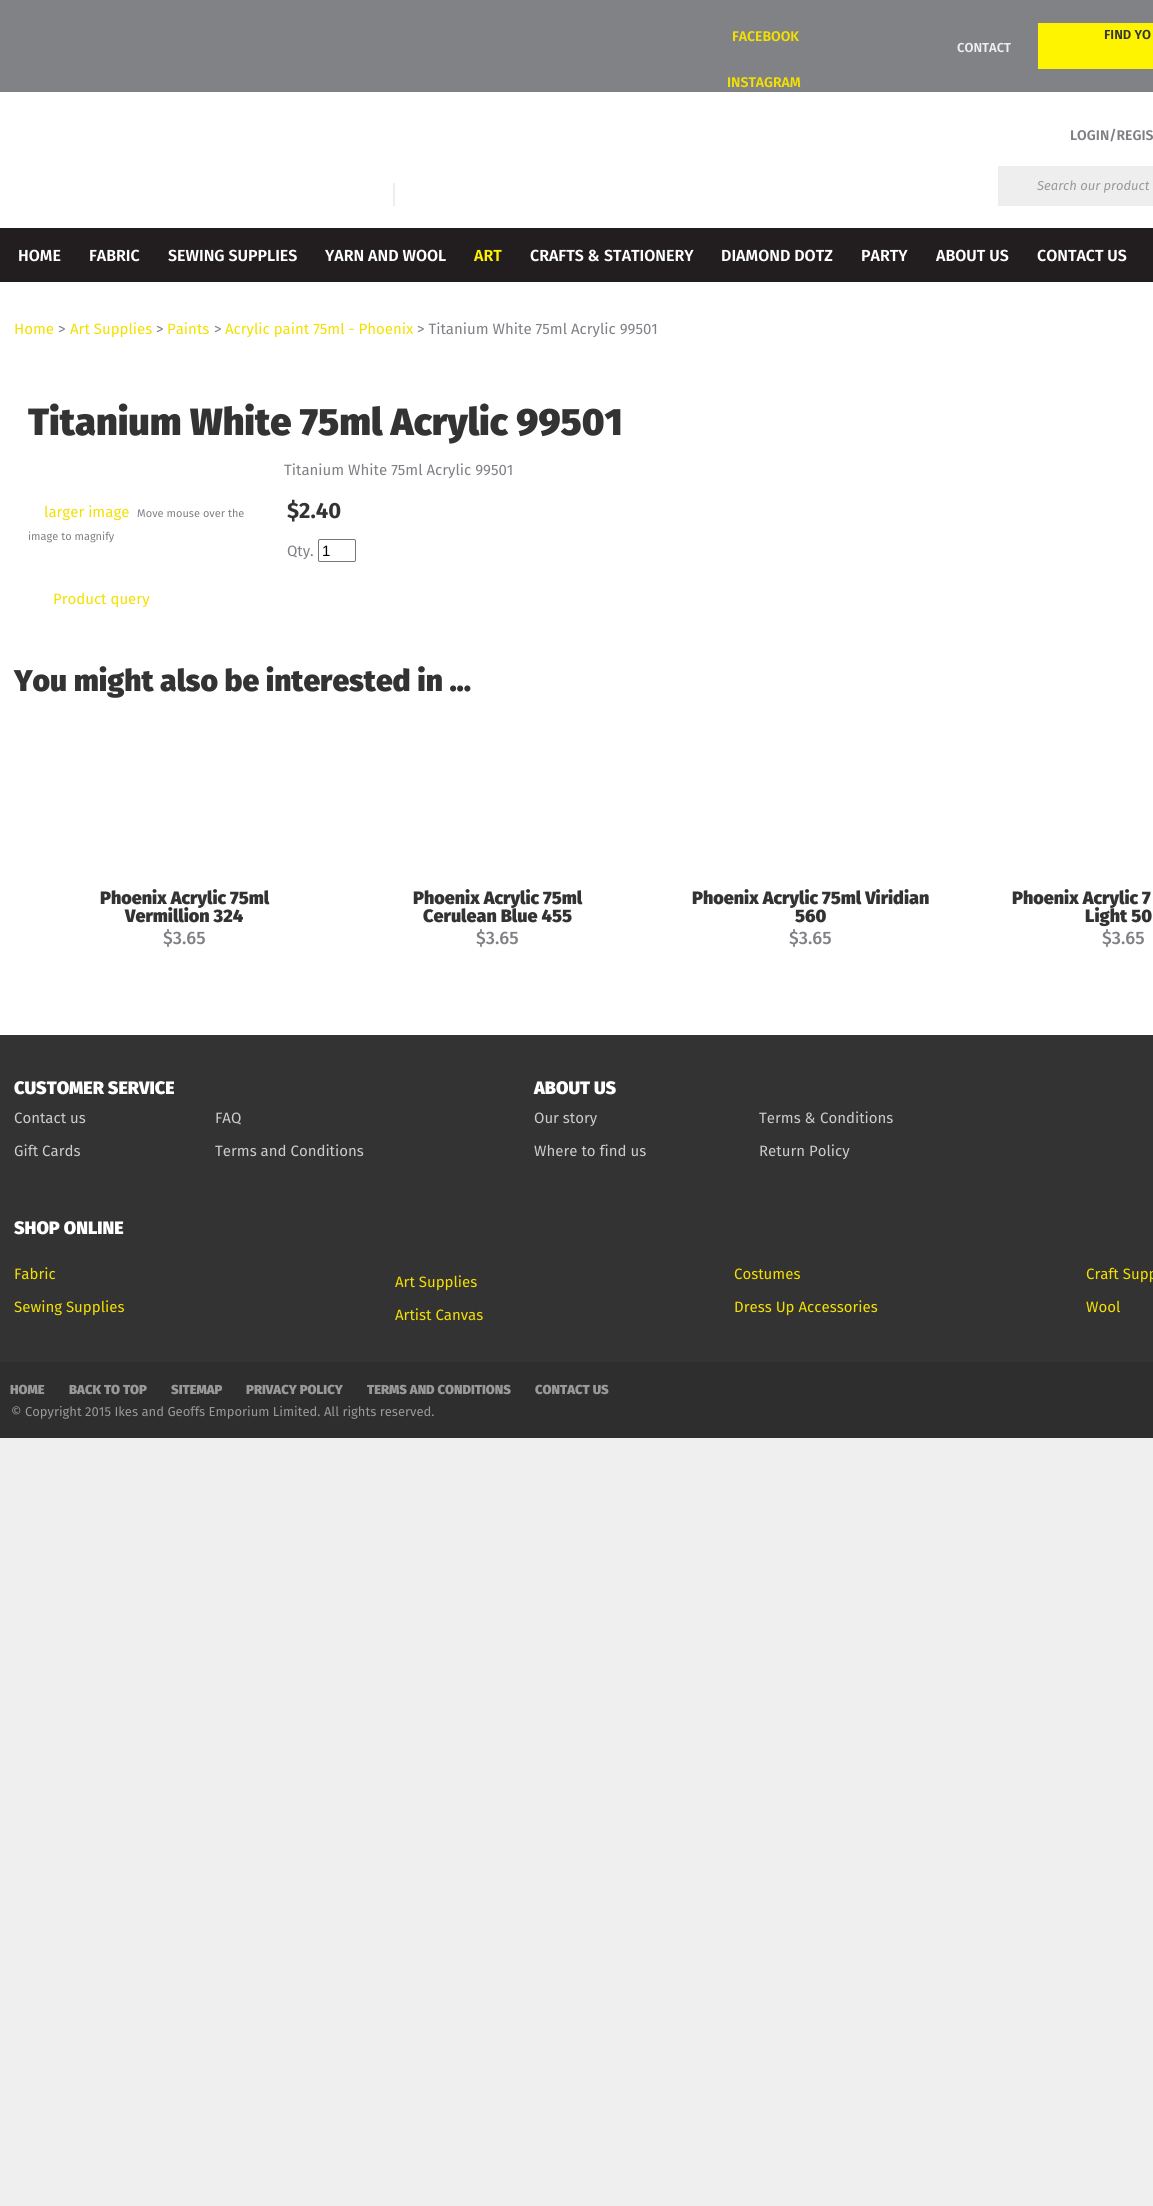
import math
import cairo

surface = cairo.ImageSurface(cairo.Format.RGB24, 1153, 2206)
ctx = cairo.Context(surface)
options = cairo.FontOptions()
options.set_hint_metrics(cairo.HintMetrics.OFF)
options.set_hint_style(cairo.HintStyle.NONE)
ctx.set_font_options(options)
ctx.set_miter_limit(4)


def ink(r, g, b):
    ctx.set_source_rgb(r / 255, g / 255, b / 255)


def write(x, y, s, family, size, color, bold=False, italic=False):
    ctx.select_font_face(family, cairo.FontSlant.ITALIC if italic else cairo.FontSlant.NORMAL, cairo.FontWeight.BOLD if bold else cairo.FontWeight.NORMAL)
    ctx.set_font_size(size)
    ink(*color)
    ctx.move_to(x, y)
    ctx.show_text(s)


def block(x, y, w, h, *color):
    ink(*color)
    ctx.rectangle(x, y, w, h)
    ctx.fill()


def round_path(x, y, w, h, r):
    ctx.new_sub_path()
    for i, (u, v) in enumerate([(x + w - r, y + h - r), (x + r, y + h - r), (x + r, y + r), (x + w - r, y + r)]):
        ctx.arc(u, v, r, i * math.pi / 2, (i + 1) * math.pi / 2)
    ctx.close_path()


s1 = dict(family="Fira Sans SemiBold", size=14, color=(243, 224, 0))
s2 = dict(family="Fira Sans SemiBold", size=13, color=(237, 237, 237))
s3 = dict(family="Fira Sans SemiBold", size=13, color=(51, 51, 51))
s4 = dict(family="Fira Sans SemiBold", size=14, color=(127, 128, 133))
s5 = dict(family="Fira Sans", size=13, color=(153, 153, 153), italic=True)
s6 = dict(family="Fira Sans SemiBold", size=16, color=(255, 255, 255))
s7 = dict(family="Fira Sans SemiBold", size=16, color=(255, 242, 0))
s8 = dict(family="Fira Sans", size=15, color=(243, 224, 0))
s9 = dict(family="Fira Sans", size=15, color=(127, 128, 133))
s10 = dict(family="Fira Sans Black", size=38, color=(51, 51, 51))
s11 = dict(family="Fira Sans", size=11, color=(127, 128, 133))
s12 = dict(family="Fira Sans", size=22, color=(51, 51, 51), bold=True)
s13 = dict(family="Liberation Sans", size=15, color=(0, 0, 0))
s14 = dict(family="Fira Sans Black", size=30, color=(51, 51, 51))
s15 = dict(family="Fira Sans Black", size=18, color=(51, 51, 51))
s16 = dict(family="Fira Sans Medium", size=18, color=(127, 128, 133))
s17 = dict(family="Fira Sans Black", size=18, color=(255, 255, 255))
s18 = dict(family="Fira Sans", size=15, color=(204, 204, 204))
s19 = dict(family="Fira Sans Black", size=13, color=(153, 153, 153))
s20 = dict(family="Fira Sans", size=13, color=(153, 153, 153))

ink(239, 239, 239)
ctx.paint()
block(0, 92, 1153, 943, 255, 255, 255)
block(0, 0, 1153, 92, 129, 130, 133)
write(732, 41, "FACEBOOK", **s1)
write(727, 87, "INSTAGRAM", **s1)
write(957, 52, "CONTACT", **s2)
block(1038, 23, 115, 46, 255, 244, 0)
write(1104, 39, "FIND YO", **s3)
block(393, 183, 2, 23, 238, 238, 238)
write(1070, 140, "LOGIN/REGIS", **s4)
block(998, 166, 155, 40, 238, 238, 238)
write(1037, 190, "Search our product", **s5)
block(0, 228, 1153, 54, 34, 30, 31)
write(18, 261, "HOME", **s6)
write(89, 261, "FABRIC", **s6)
write(168, 261, "SEWING SUPPLIES", **s6)
write(325, 261, "YARN AND WOOL", **s6)
write(474, 261, "ART", **s7)
write(530, 261, "CRAFTS & STATIONERY", **s6)
write(721, 261, "DIAMOND DOTZ", **s6)
write(861, 261, "PARTY", **s6)
write(936, 261, "ABOUT US", **s6)
write(1037, 261, "CONTACT US", **s6)
write(14, 334, "Home", **s8)
write(58, 334, ">", **s9)
write(70, 334, "Art Supplies", **s8)
write(156, 334, ">", **s9)
write(167, 334, "Paints", **s8)
write(214, 334, ">", **s9)
write(225, 334, "Acrylic paint 75ml - Phoenix", **s8)
write(417, 334, "> Titanium White 75ml Acrylic 99501", **s9)
write(28, 435, "Titanium White 75ml Acrylic 99501", **s10)
write(44, 517, "larger image", **s8)
write(137, 517, "Move mouse over the", **s11)
write(28, 540, "image to magnify", **s11)
write(53, 604, "Product query", **s8)
write(284, 475, "Titanium White 75ml Acrylic 99501", **s9)
write(287, 518, "$2.40", **s12)
write(287, 556, "Qty.", **s9)
round_path(318.5, 539.5, 37, 22, 1.5)
ink(118, 118, 118)
ctx.set_line_width(1)
ctx.stroke()
write(322, 556, "1", **s13)
write(14, 691, "You might also be interested in ...", **s14)
write(100, 904, "Phoenix Acrylic 75ml", **s15)
write(125, 922, "Vermillion 324", **s15)
write(163, 944, "$3.65", **s16)
write(413, 904, "Phoenix Acrylic 75ml", **s15)
write(423, 922, "Cerulean Blue 455", **s15)
write(476, 944, "$3.65", **s16)
write(692, 904, "Phoenix Acrylic 75ml Viridian", **s15)
write(795, 922, "560", **s15)
write(789, 944, "$3.65", **s16)
write(1012, 904, "Phoenix Acrylic 7", **s15)
write(1085, 922, "Light 50", **s15)
write(1102, 944, "$3.65", **s16)
block(0, 1035, 1153, 327, 51, 51, 51)
write(14, 1094, "CUSTOMER SERVICE", **s17)
write(14, 1123, "Contact us", **s18)
write(215, 1123, "FAQ", **s18)
write(14, 1156, "Gift Cards", **s18)
write(215, 1156, "Terms and Conditions", **s18)
write(534, 1094, "ABOUT US", **s17)
write(534, 1123, "Our story", **s18)
write(759, 1123, "Terms & Conditions", **s18)
write(534, 1156, "Where to find us", **s18)
write(759, 1156, "Return Policy", **s18)
write(14, 1234, "SHOP ONLINE", **s17)
write(14, 1279, "Fabric", **s8)
write(14, 1312, "Sewing Supplies", **s8)
write(395, 1287, "Art Supplies", **s8)
write(395, 1320, "Artist Canvas", **s8)
write(734, 1279, "Costumes", **s8)
write(734, 1312, "Dress Up Accessories", **s8)
write(1086, 1279, "Craft Supp", **s8)
write(1086, 1312, "Wool", **s8)
block(0, 1362, 1153, 76, 46, 46, 46)
write(10, 1394, "HOME", **s19)
write(69, 1394, "BACK TO TOP", **s19)
write(171, 1394, "SITEMAP", **s19)
write(246, 1394, "PRIVACY POLICY", **s19)
write(367, 1394, "TERMS AND CONDITIONS", **s19)
write(535, 1394, "CONTACT US", **s19)
write(11, 1416, "© Copyright 2015 Ikes and Geoffs Emporium Limited. All rights reserved.", **s20)
surface.write_to_png("screenshot.png")
